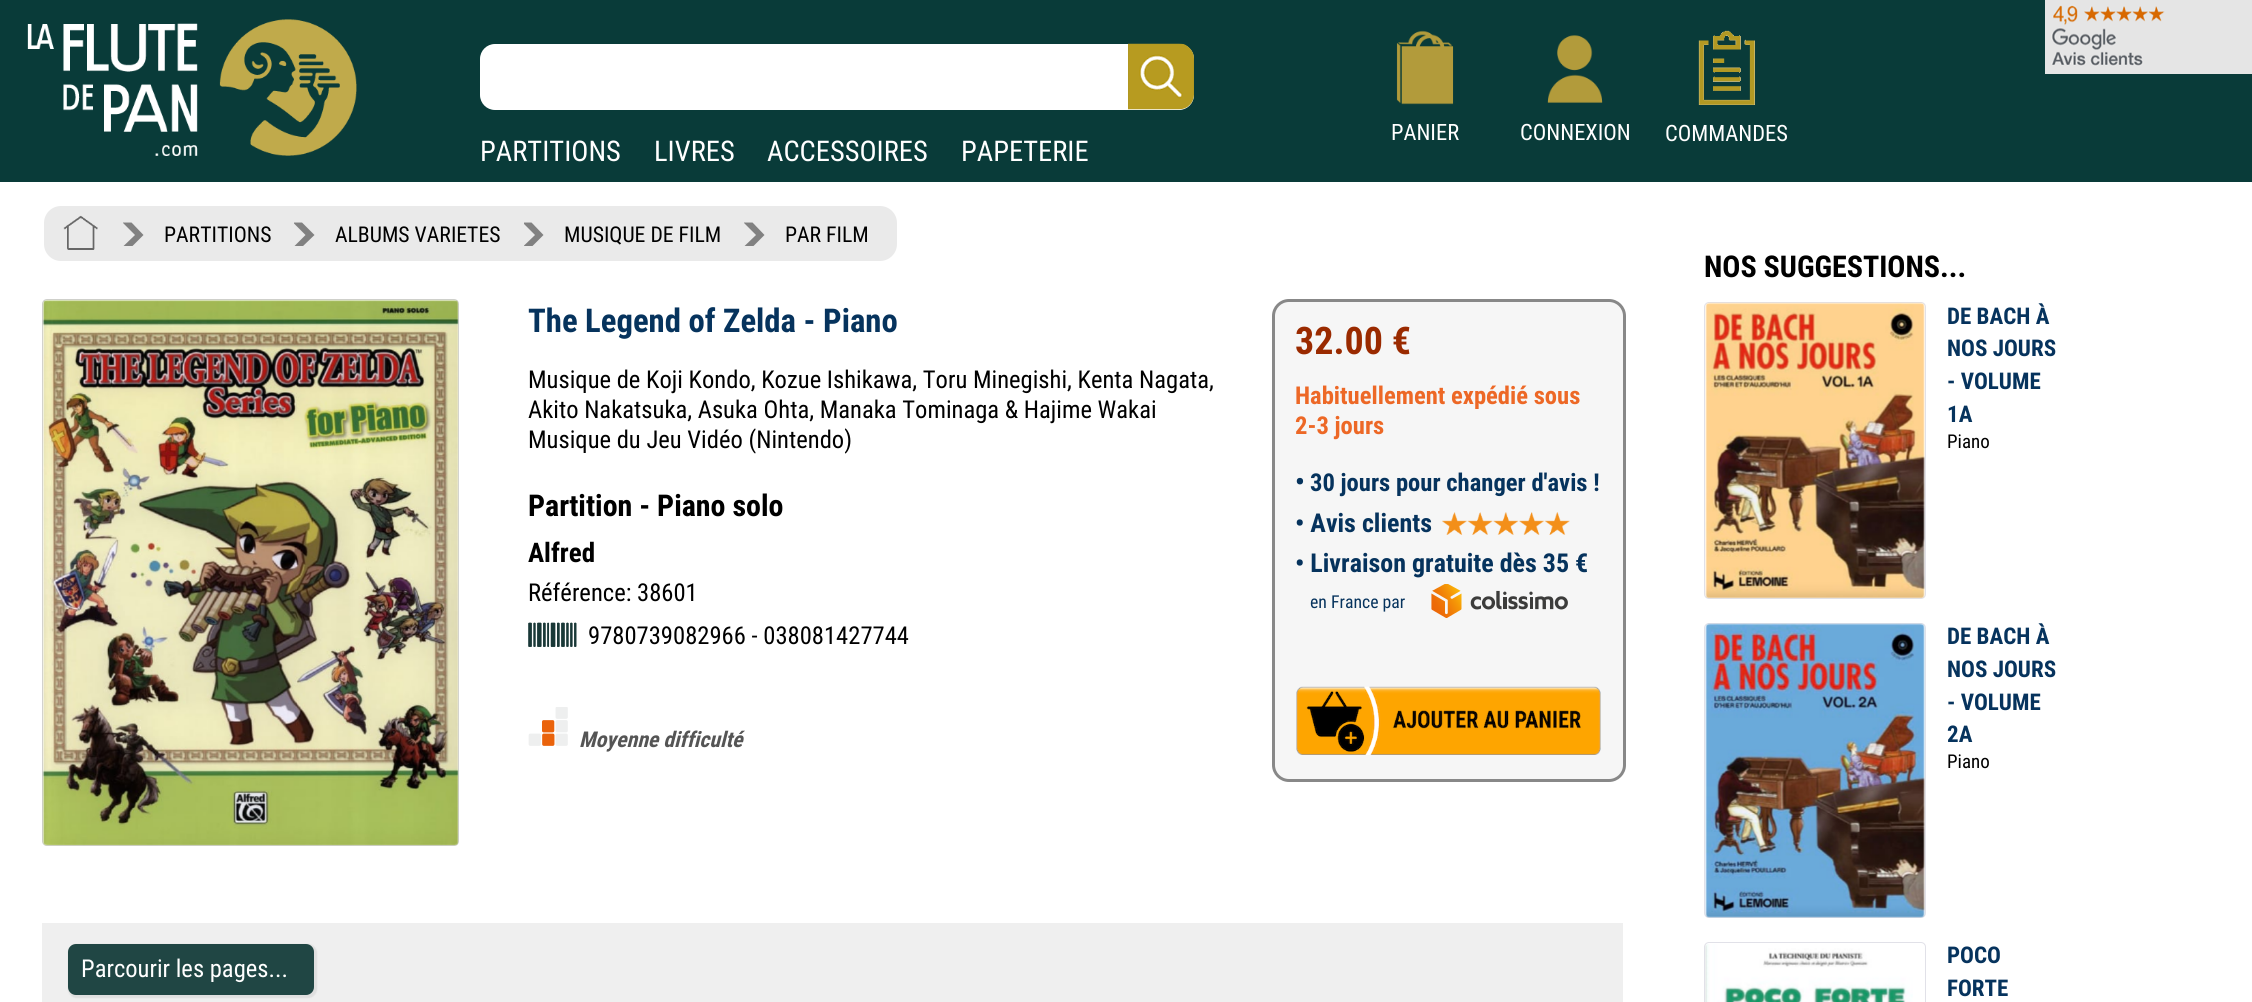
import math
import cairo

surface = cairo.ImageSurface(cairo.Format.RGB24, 2252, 1002)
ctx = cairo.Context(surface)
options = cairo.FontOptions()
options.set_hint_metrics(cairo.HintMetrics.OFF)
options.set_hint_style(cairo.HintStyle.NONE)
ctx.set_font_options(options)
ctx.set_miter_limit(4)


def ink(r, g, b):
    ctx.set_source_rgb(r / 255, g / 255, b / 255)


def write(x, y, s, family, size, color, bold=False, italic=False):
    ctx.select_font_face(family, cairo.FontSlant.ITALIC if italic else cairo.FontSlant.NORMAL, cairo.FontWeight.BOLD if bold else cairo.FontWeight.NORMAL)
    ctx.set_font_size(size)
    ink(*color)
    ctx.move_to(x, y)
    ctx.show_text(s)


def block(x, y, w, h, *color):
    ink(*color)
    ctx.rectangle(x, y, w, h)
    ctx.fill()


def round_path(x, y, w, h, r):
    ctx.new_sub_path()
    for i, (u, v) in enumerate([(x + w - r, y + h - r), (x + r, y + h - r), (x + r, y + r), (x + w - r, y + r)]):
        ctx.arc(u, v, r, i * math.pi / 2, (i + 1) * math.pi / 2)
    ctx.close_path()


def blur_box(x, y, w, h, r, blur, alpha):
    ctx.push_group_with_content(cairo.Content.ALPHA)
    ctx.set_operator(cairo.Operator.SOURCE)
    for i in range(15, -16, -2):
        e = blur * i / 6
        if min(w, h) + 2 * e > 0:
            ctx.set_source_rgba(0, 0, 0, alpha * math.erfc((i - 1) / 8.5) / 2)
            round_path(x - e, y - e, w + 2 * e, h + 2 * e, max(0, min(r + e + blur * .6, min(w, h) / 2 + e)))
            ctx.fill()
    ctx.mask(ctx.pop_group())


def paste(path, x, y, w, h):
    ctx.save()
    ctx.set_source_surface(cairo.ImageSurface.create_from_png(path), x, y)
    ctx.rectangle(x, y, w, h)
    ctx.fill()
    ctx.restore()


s1 = dict(family="Roboto Condensed", size=22.5, color=(255, 255, 255))
s2 = dict(family="Roboto Condensed", size=28.5, color=(255, 255, 255))
s3 = dict(family="Roboto Condensed", size=21.75, color=(0, 0, 0))
s4 = dict(family="Roboto Condensed", size=32.75, color=(6, 51, 93), bold=True)
s5 = dict(family="Roboto Condensed", size=24.6, color=(0, 0, 0))
s6 = dict(family="Roboto Condensed", size=30, color=(0, 0, 0), bold=True)
s7 = dict(family="Roboto Condensed", size=27, color=(0, 0, 0), bold=True)
s8 = dict(family="Roboto Condensed", size=21.75, color=(85, 85, 85), bold=True, italic=True)
s9 = dict(family="Roboto Condensed", size=38, color=(154, 42, 0), bold=True)
s10 = dict(family="Roboto Condensed", size=24.6, color=(237, 104, 38), bold=True)
s11 = dict(family="Roboto Condensed", size=27, color=(6, 51, 93), bold=True)
s12 = dict(family="Roboto Condensed", size=24.6, color=(6, 51, 93), bold=True)
s13 = dict(family="Roboto Condensed", size=26, color=(6, 51, 93), bold=True)
s14 = dict(family="Roboto Condensed", size=17.75, color=(6, 51, 93))
s15 = dict(family="Roboto Condensed", size=24.6, color=(255, 255, 255))
s16 = dict(family="Roboto Condensed", size=23, color=(6, 51, 93), bold=True)
s17 = dict(family="Roboto Condensed", size=19, color=(0, 0, 0))

ink(255, 255, 255)
ctx.paint()
block(0, 0, 2252, 182, 9, 59, 57)
paste("pic1.png", 2045, 0, 207, 74)
paste("pic2.png", 27, 19, 330, 137)
paste("pic3.png", 1396, 30, 58, 75)
write(1391, 140, "PANIER", **s1)
paste("pic4.png", 1547, 35, 56, 68)
write(1520, 140, "CONNEXION", **s1)
paste("pic5.png", 1698, 30, 57, 75)
write(1665, 141, "COMMANDES", **s1)
round_path(480, 44, 714, 66, 15)
ctx.fill()
paste("pic6.png", 1128, 43, 66, 67)
write(480, 161, "PARTITIONS", **s2)
write(654, 161, "LIVRES", **s2)
write(767, 161, "ACCESSOIRES", **s2)
write(961, 161, "PAPETERIE", **s2)
ink(234, 234, 234)
round_path(44, 206, 853, 55, 17)
ctx.fill()
paste("pic7.png", 63, 215, 35, 35)
ctx.save()
ctx.rectangle(123, 222, 24, 24)
ctx.clip()
ink(129, 129, 129)
ctx.new_path()
ctx.move_to(122.5, 222.5)
ctx.line_to(135, 235)
ctx.line_to(122.5, 247)
ctx.line_to(131.5, 247)
ctx.line_to(143.5, 235)
ctx.line_to(131.5, 222.5)
ctx.close_path()
ctx.fill()
ctx.restore()
write(164, 242, "PARTITIONS", **s3)
ctx.save()
ctx.rectangle(294, 222, 24, 24)
ctx.clip()
ink(129, 129, 129)
ctx.new_path()
ctx.move_to(293, 222.5)
ctx.line_to(305.5, 235)
ctx.line_to(293.5, 247)
ctx.line_to(302, 247)
ctx.line_to(314.5, 235)
ctx.line_to(302, 222.5)
ctx.close_path()
ctx.fill()
ctx.restore()
write(335, 242, "ALBUMS VARIETES", **s3)
ctx.save()
ctx.rectangle(524, 222, 24, 24)
ctx.clip()
ink(129, 129, 129)
ctx.new_path()
ctx.move_to(522.5, 222.5)
ctx.line_to(535, 235)
ctx.line_to(522.5, 247)
ctx.line_to(531.5, 247)
ctx.line_to(543.5, 235)
ctx.line_to(531.5, 222.5)
ctx.close_path()
ctx.fill()
ctx.restore()
write(564, 242, "MUSIQUE DE FILM", **s3)
ctx.save()
ctx.rectangle(744, 222, 24, 24)
ctx.clip()
ink(129, 129, 129)
ctx.new_path()
ctx.move_to(743.5, 222.5)
ctx.line_to(756, 235)
ctx.line_to(743.5, 247)
ctx.line_to(752.5, 247)
ctx.line_to(764.5, 235)
ctx.line_to(752.5, 222.5)
ctx.close_path()
ctx.fill()
ctx.restore()
write(785, 242, "PAR FILM", **s3)
round_path(42.5, 299.5, 416, 546, 4.5)
ink(209, 209, 209)
ctx.set_line_width(1)
ctx.stroke()
paste("pic8.png", 42, 299, 417, 547)
write(528, 332, "The Legend of Zelda - Piano", **s4)
write(528, 388, "Musique de Koji Kondo, Kozue Ishikawa, Toru Minegishi, Kenta Nagata,", **s5)
write(528, 418, "Akito Nakatsuka, Asuka Ohta, Manaka Tominaga & Hajime Wakai", **s5)
write(528, 448, "Musique du Jeu Vidéo (Nintendo)", **s5)
write(528, 516, "Partition - Piano solo", **s6)
write(528, 562, "Alfred", **s7)
write(528, 601, "Référence: 38601", **s5)
paste("pic9.png", 528, 622, 49, 25)
write(588, 644, "9780739082966 - 038081427744", **s5)
paste("pic10.png", 528, 707, 40, 39)
write(579, 747, "Moyenne difficulté", **s8)
ink(246, 246, 246)
round_path(1273.5, 300.5, 351, 480, 15.5)
ctx.fill_preserve()
ink(136, 136, 136)
ctx.set_line_width(3)
ctx.stroke()
write(1295, 354, "32.00 €", **s9)
write(1295, 404, "Habituellement expédié sous", **s10)
write(1295, 434, "2-3 jours", **s10)
write(1295, 491, "•", **s11)
write(1310, 491, "30 jours pour changer d'avis !", **s12)
write(1295, 532, "• Avis clients", **s13)
paste("pic11.png", 1442, 512, 128, 23)
write(1295, 572, "• Livraison gratuite dès 35 €", **s13)
write(1310, 608, "en France par", **s14)
paste("pic12.png", 1431, 584, 137, 34)
paste("pic13.png", 1296, 686, 305, 69)
block(42, 923, 1581, 79, 239, 239, 239)
ink(223, 223, 223)
blur_box(68, 944, 249, 54, 9, 0.5, 1)
ink(32, 70, 68)
round_path(68, 944, 246, 51, 8)
ctx.fill()
write(81, 977, "Parcourir les pages...", **s15)
write(1704, 277, "NOS SUGGESTIONS...", **s6)
round_path(1704.5, 302.5, 221, 296, 4.5)
ink(225, 225, 232)
ctx.set_line_width(1)
ctx.stroke()
paste("pic14.png", 1705, 302, 220, 297)
write(1947, 324, "DE BACH À", **s16)
write(1947, 356, "NOS JOURS", **s16)
write(1947, 389, "- VOLUME", **s16)
write(1947, 422, "1A", **s16)
write(1947, 448, "Piano", **s17)
round_path(1704.5, 623.5, 221, 294, 4.5)
ink(225, 225, 232)
ctx.stroke()
paste("pic15.png", 1705, 623, 220, 295)
write(1947, 644, "DE BACH À", **s16)
write(1947, 677, "NOS JOURS", **s16)
write(1947, 710, "- VOLUME", **s16)
write(1947, 742, "2A", **s16)
write(1947, 768, "Piano", **s17)
round_path(1704.5, 942.5, 221, 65, 4.5)
ink(225, 225, 232)
ctx.stroke()
paste("pic16.png", 1705, 944, 208, 58)
write(1947, 963, "POCO", **s16)
write(1947, 996, "FORTE", **s16)
surface.write_to_png("screenshot.png")
